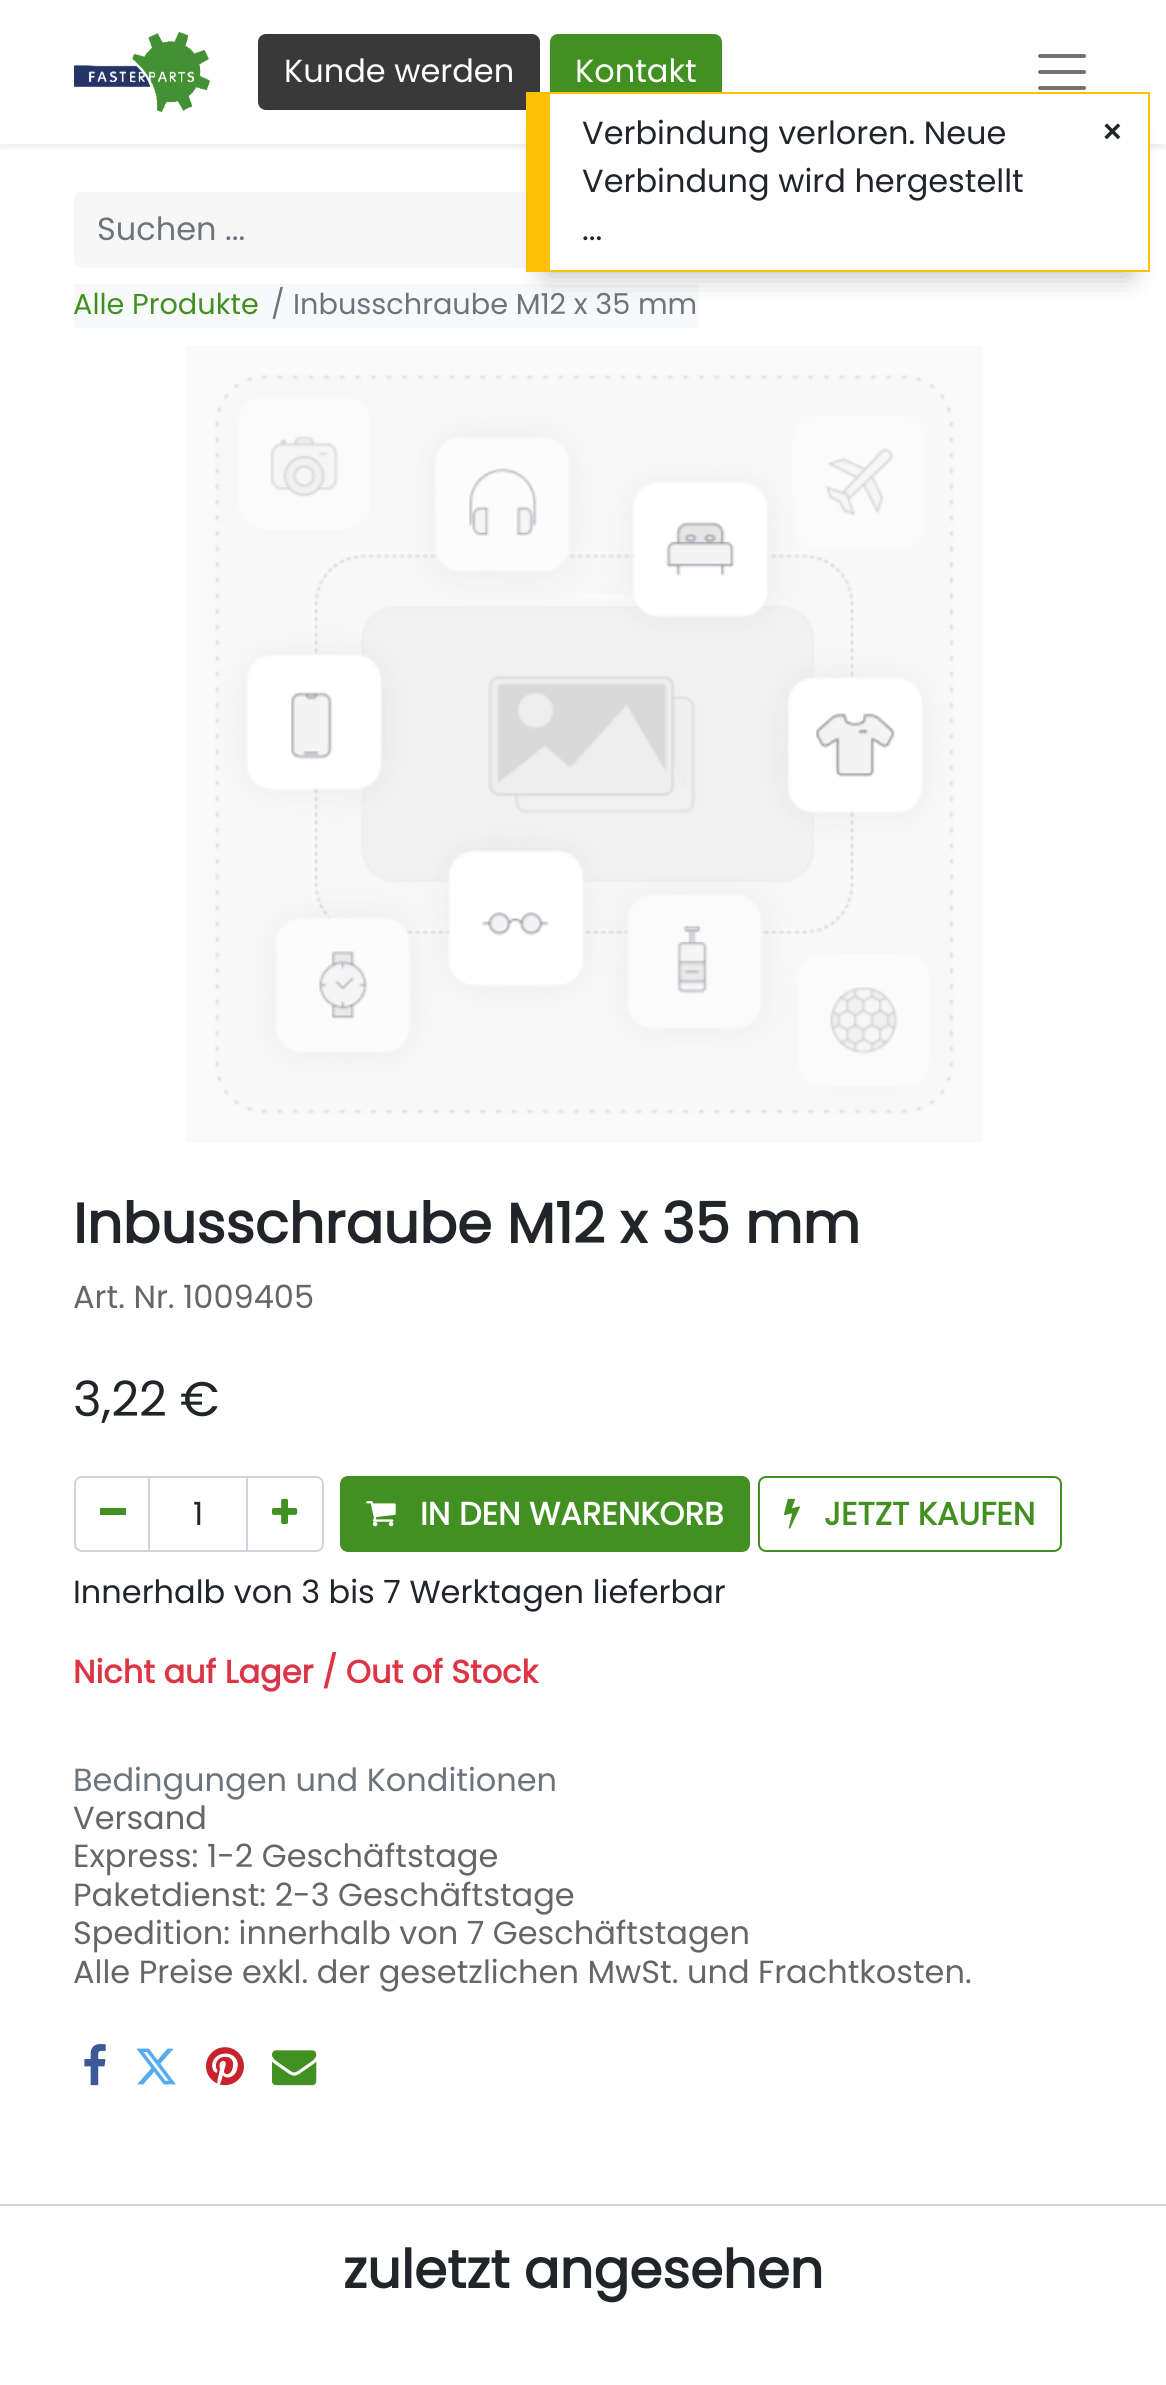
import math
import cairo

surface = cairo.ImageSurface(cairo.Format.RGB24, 1166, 2385)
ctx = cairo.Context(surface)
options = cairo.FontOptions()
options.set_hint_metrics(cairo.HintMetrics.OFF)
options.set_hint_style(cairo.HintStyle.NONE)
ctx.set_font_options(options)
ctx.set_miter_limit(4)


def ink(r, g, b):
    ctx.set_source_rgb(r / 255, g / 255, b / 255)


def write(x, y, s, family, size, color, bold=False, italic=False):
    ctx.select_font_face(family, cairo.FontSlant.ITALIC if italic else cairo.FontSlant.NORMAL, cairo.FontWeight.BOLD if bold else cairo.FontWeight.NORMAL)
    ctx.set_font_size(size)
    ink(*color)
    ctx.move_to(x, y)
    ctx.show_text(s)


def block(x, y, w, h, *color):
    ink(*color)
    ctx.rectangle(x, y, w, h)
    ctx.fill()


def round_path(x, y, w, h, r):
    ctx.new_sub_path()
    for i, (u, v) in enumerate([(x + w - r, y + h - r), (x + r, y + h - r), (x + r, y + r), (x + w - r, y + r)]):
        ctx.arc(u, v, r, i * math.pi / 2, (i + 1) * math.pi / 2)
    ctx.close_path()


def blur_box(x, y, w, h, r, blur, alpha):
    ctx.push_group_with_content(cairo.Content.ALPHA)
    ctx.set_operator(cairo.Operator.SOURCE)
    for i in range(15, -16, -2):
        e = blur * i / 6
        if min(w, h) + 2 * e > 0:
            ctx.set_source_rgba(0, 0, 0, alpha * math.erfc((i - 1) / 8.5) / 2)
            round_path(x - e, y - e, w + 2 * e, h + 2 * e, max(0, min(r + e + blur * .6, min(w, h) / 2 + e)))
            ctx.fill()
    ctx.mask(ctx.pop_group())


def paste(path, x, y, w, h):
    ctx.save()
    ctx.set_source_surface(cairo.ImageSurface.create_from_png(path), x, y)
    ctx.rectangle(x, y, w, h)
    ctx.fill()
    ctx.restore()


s1 = dict(family="Poppins", size=32, color=(255, 255, 255))
s2 = dict(family="Poppins", size=32, color=(108, 117, 125))
s3 = dict(family="Poppins", size=28.75, color=(67, 144, 34))
s4 = dict(family="Poppins", size=28.75, color=(108, 117, 125))
s5 = dict(family="Poppins", size=56, color=(33, 37, 41), bold=True)
s6 = dict(family="Poppins", size=32, color=(100, 102, 105))
s7 = dict(family="Poppins", size=48.5, color=(33, 37, 41))
s8 = dict(family="Poppins", size=32, color=(33, 37, 41))
s9 = dict(family="Poppins", size=32, color=(255, 255, 255), bold=True)
s10 = dict(family="Poppins", size=32, color=(67, 144, 34), bold=True)
s11 = dict(family="Poppins", size=32, color=(220, 53, 69), bold=True)
s12 = dict(family="Poppins", size=53, color=(33, 37, 41), bold=True)
s13 = dict(family="Liberation Sans", size=32, color=(33, 37, 41), bold=True)

ink(255, 255, 255)
ctx.paint()
ctx.save()
ctx.rectangle(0, 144, 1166, 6)
ctx.clip()
ink(0, 0, 0)
blur_box(0, 4, 1166, 144, 0, 4, 0.07)
ctx.restore()
paste("pic1.png", 74, 32, 136, 80)
ink(57, 57, 57)
round_path(259, 35, 280, 74, 7)
ctx.fill_preserve()
ctx.stroke()
write(284, 82, "Kunde werden", **s1)
ink(67, 144, 34)
round_path(551, 35, 170, 74, 7)
ctx.fill_preserve()
ctx.stroke()
write(575, 82, "Kontakt", **s1)
ctx.new_path()
ctx.move_to(1040, 56)
ctx.line_to(1084, 56)
ctx.move_to(1040, 72)
ctx.line_to(1084, 72)
ctx.move_to(1040, 88)
ctx.line_to(1084, 88)
ink(115, 115, 115)
ctx.set_line_width(4)
ctx.set_line_cap(cairo.LineCap.ROUND)
ctx.stroke()
ink(247, 247, 247)
ctx.new_path()
ctx.move_to(82, 192)
ctx.line_to(1010, 192)
ctx.line_to(1010, 268)
ctx.line_to(82, 268)
ctx.curve_to(77.5, 268, 74, 264.5, 74, 260)
ctx.line_to(74, 200)
ctx.curve_to(74, 195.5, 77.5, 192, 82, 192)
ctx.close_path()
ctx.fill()
write(97, 240, "Suchen ...", **s2)
block(74, 284, 624, 44, 248, 249, 250)
write(73, 314, "Alle Produkte", **s3)
write(271, 314, "/", **s4)
write(293, 314, "Inbusschraube M12 x 35 mm", **s4)
paste("pic2.png", 185, 345, 798, 798)
write(73, 1243, "Inbusschraube M12 x 35 mm", **s5)
write(73, 1308, "Art. Nr. 1009405", **s6)
write(73, 1416, "3,22 €", **s7)
ctx.rectangle(149, 1477, 98, 74)
ink(206, 212, 218)
ctx.set_line_width(2)
ctx.set_line_cap(cairo.LineCap.BUTT)
ctx.stroke()
ctx.new_path()
ctx.move_to(82, 1477)
ctx.line_to(149, 1477)
ctx.line_to(149, 1551)
ctx.line_to(82, 1551)
ctx.curve_to(78, 1551, 75, 1548, 75, 1544)
ctx.line_to(75, 1484)
ctx.curve_to(75, 1480, 78, 1477, 82, 1477)
ctx.close_path()
ctx.stroke()
block(100, 1508, 26, 7, 67, 144, 34)
write(193, 1525, "1", **s8)
ctx.new_path()
ctx.move_to(247, 1477)
ctx.line_to(316, 1477)
ctx.curve_to(320, 1477, 323, 1480, 323, 1484)
ctx.line_to(323, 1544)
ctx.curve_to(323, 1548, 320, 1551, 316, 1551)
ctx.line_to(247, 1551)
ctx.close_path()
ink(206, 212, 218)
ctx.stroke()
paste("pic3.png", 272, 1498, 26, 26)
ink(67, 144, 34)
round_path(341, 1477, 408, 74, 7)
ctx.fill_preserve()
ctx.stroke()
paste("pic4.png", 366, 1501, 30, 26)
write(420, 1525, "IN DEN WARENKORB", **s9)
round_path(759, 1477, 302, 74, 7)
ink(67, 144, 34)
ctx.stroke()
paste("pic5.png", 784, 1498, 16, 31)
write(824, 1525, "JETZT KAUFEN", **s10)
write(73, 1603, "Innerhalb von 3 bis 7 Werktagen lieferbar", **s8)
write(73, 1683, "Nicht auf Lager / Out of Stock", **s11)
write(73, 1791, "Bedingungen und Konditionen", **s2)
write(73, 1829, "Versand", **s6)
write(73, 1867, "Express: 1-2 Geschäftstage", **s6)
write(73, 1906, "Paketdienst: 2-3 Geschäftstage", **s6)
write(73, 1944, "Spedition: innerhalb von 7 Geschäftstagen", **s6)
write(73, 1983, "Alle Preise exkl. der gesetzlichen MwSt. und Frachtkosten.", **s6)
paste("pic6.png", 84, 2044, 22, 42)
paste("pic7.png", 136, 2048, 40, 37)
paste("pic8.png", 206, 2047, 38, 39)
paste("pic9.png", 272, 2050, 45, 36)
block(0, 2204, 1166, 2, 206, 212, 218)
write(343, 2288, "zuletzt angesehen", **s12)
ink(0, 0, 0)
blur_box(546, 136, 584, 140, 0, 14, 0.25)
block(550, 94, 598, 176, 255, 255, 255)
block(550, 92, 600, 2, 255, 193, 7)
block(1148, 92, 2, 180, 255, 193, 7)
block(550, 270, 600, 2, 255, 193, 7)
block(526, 92, 24, 180, 255, 193, 7)
write(582, 144, "Verbindung verloren. Neue", **s8)
write(582, 192, "Verbindung wird hergestellt", **s8)
write(582, 240, "...", **s8)
write(1103, 142, "×", **s13)
surface.write_to_png("screenshot.png")
